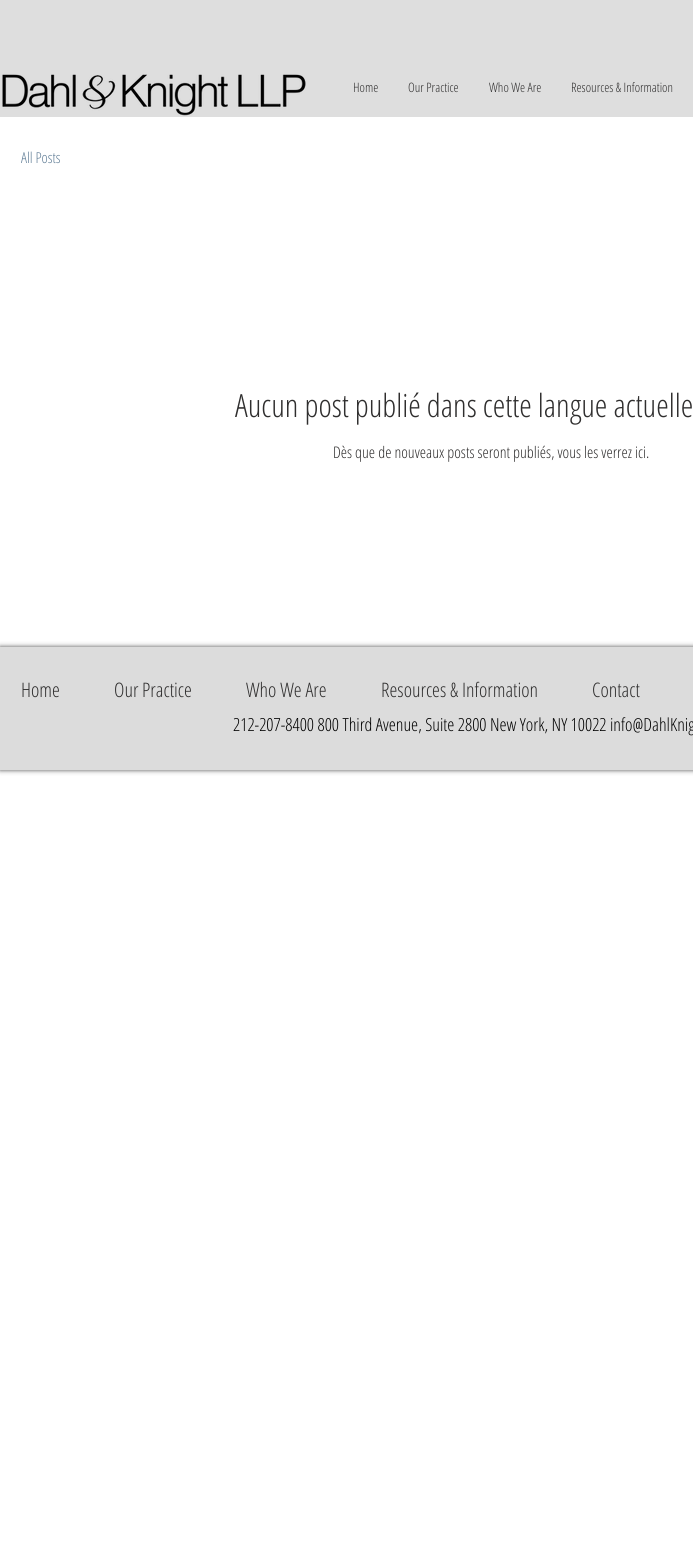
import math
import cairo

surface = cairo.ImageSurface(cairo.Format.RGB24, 693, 1544)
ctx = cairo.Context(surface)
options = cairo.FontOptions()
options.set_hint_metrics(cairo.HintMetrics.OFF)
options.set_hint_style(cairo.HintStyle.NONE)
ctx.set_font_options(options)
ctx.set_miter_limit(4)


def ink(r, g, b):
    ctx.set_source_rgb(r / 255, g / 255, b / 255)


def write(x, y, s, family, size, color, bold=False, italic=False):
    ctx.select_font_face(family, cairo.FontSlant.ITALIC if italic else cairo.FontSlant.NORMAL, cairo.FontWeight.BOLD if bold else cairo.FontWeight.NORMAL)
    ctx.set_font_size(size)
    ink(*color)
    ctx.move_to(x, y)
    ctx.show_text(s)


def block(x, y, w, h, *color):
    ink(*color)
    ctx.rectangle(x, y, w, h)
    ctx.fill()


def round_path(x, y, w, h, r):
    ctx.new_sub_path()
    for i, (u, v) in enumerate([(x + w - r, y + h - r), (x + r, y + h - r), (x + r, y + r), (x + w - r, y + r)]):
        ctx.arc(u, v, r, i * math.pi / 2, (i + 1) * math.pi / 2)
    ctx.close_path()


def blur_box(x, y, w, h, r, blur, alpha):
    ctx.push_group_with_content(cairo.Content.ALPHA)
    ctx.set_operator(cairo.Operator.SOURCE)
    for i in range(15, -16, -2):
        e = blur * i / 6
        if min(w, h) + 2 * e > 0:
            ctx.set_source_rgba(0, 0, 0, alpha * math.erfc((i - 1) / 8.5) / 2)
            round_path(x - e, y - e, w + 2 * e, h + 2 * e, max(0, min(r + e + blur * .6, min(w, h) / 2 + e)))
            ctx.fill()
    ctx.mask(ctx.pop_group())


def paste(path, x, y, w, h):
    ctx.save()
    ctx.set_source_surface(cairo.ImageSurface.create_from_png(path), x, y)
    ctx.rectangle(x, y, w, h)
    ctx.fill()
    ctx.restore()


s1 = dict(family="Open Sans Condensed Light", size=13, color=(47, 46, 46))
s2 = dict(family="Open Sans Condensed Light", size=15, color=(96, 125, 150))
s3 = dict(family="Open Sans Condensed Light", size=32, color=(47, 46, 46))
s4 = dict(family="Open Sans Condensed Light", size=16, color=(47, 46, 46))
s5 = dict(family="Open Sans Condensed Light", size=20, color=(47, 46, 46))
s6 = dict(family="Open Sans Condensed Light", size=18, color=(0, 0, 0))

ink(255, 255, 255)
ctx.paint()
block(0, 0, 693, 117, 222, 222, 222)
paste("pic1.png", 2, 74, 304, 42)
write(353, 92, "Home", **s1)
write(408, 92, "Our Practice", **s1)
write(489, 92, "Who We Are", **s1)
write(571, 92, "Resources & Information", **s1)
write(21, 163, "All Posts", **s2)
write(235, 417, "Aucun post publié dans cette langue actuelle", **s3)
write(333, 458, "Dès que de nouveaux posts seront publiés, vous les verrez ici.", **s4)
ink(0, 0, 0)
blur_box(0, 647, 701, 123, 0, 2.5, 0.7)
block(0, 647, 693, 123, 220, 220, 220)
write(21, 697, "Home", **s5)
write(114, 697, "Our Practice", **s5)
write(246, 697, "Who We Are", **s5)
write(381, 697, "Resources & Information", **s5)
write(592, 697, "Contact", **s5)
write(233, 731, "212-207-8400 800 Third Avenue, Suite 2800 New York, NY 10022 info@DahlKnig", **s6)
surface.write_to_png("screenshot.png")
